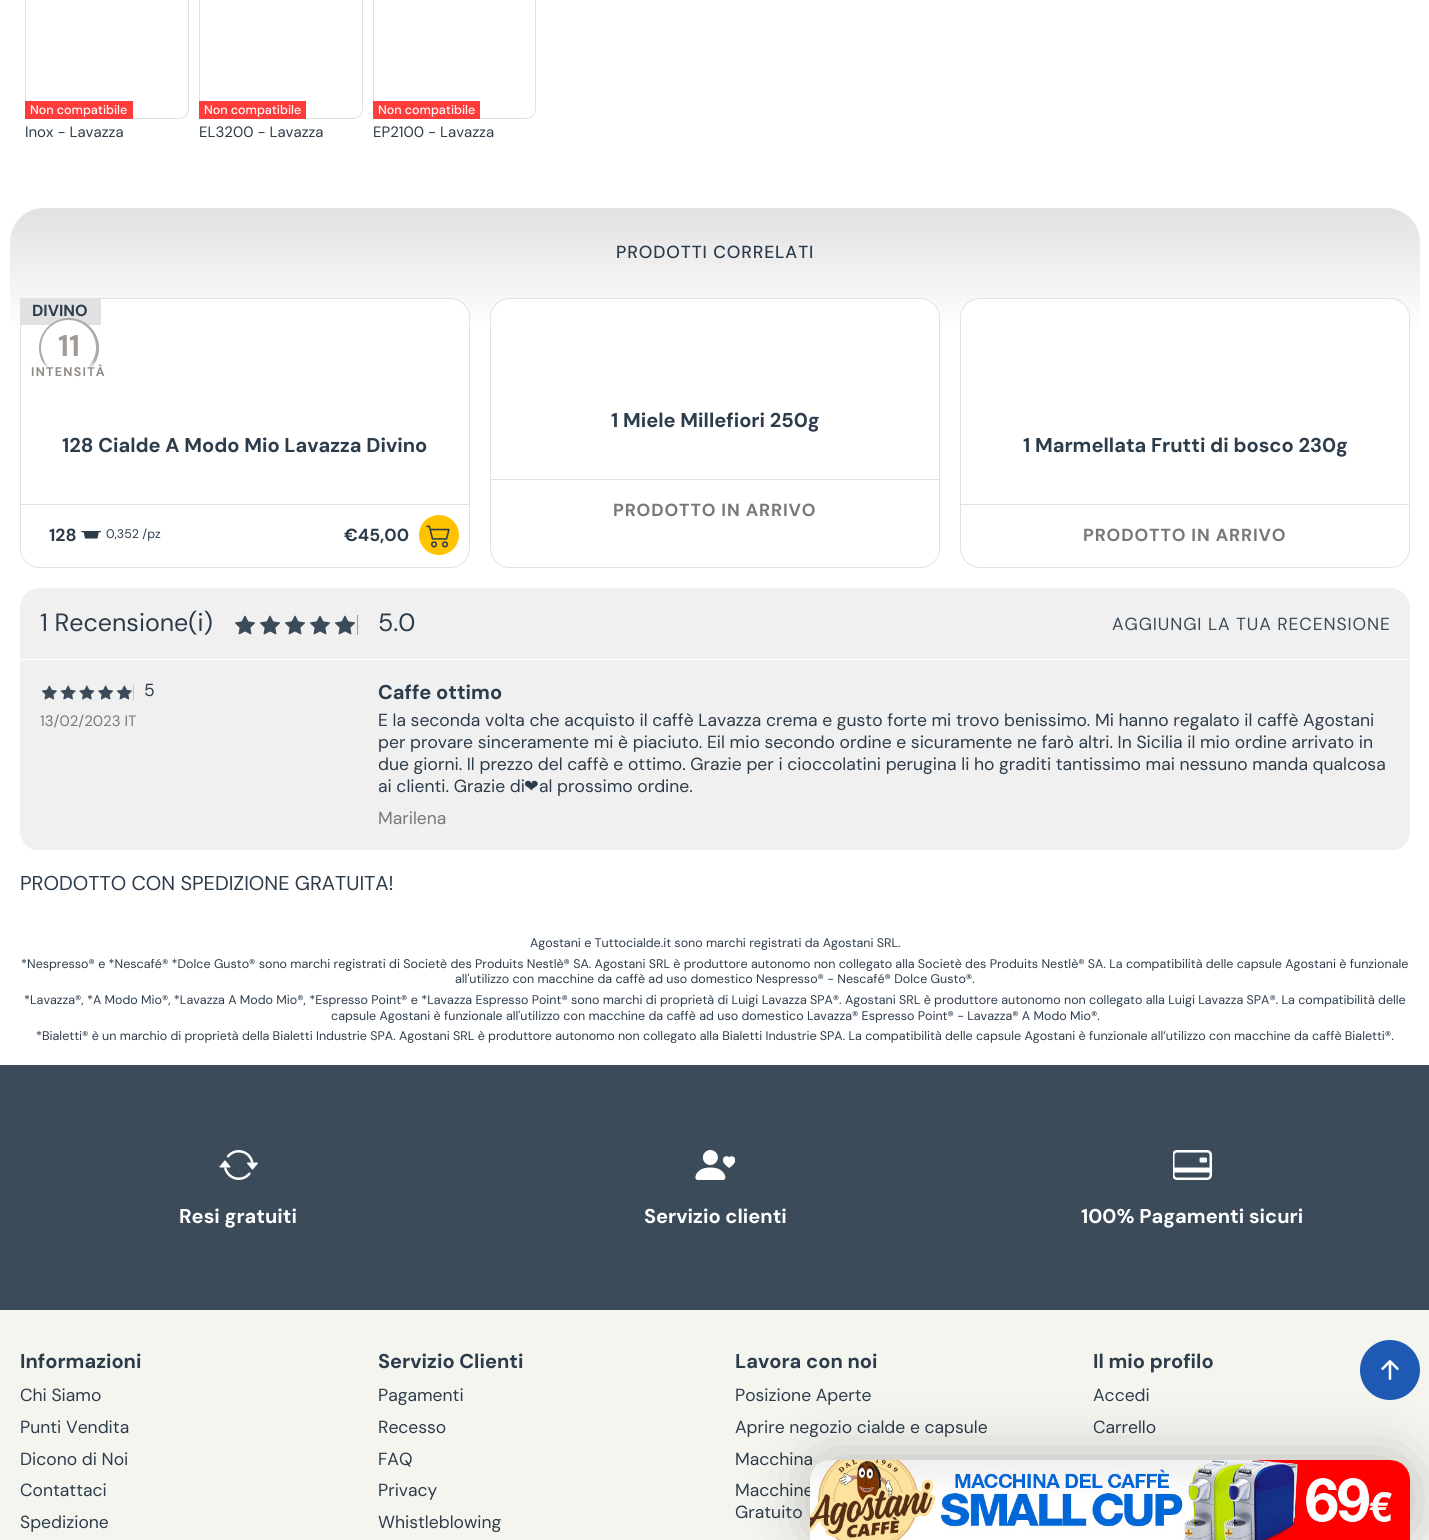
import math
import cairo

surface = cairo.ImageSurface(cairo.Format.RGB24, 1429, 1540)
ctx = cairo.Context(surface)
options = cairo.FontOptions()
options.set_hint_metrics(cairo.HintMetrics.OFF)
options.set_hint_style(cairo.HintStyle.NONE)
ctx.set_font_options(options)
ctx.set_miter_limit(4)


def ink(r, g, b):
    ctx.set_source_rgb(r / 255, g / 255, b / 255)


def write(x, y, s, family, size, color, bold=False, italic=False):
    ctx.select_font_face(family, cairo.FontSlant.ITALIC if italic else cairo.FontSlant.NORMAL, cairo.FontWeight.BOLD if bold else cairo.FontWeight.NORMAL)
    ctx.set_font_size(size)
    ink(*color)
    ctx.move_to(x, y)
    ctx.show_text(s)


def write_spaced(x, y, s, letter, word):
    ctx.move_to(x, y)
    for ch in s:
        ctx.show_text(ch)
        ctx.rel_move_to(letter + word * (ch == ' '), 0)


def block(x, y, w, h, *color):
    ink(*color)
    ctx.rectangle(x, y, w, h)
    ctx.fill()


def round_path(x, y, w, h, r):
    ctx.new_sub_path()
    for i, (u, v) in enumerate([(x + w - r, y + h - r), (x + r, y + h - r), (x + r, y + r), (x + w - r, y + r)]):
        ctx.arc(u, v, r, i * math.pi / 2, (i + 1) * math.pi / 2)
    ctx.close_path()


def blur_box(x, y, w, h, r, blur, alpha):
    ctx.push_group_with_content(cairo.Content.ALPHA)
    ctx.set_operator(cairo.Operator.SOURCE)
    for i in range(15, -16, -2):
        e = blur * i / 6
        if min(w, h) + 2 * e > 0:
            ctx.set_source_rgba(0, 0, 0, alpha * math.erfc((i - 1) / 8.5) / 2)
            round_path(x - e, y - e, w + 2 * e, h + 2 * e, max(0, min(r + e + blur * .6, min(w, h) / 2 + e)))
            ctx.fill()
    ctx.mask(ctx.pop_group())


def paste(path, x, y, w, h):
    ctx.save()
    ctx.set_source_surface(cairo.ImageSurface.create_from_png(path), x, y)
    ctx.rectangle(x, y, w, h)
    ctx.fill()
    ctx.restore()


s1 = dict(family="DM Sans Medium", size=12.5, color=(255, 255, 255))
s2 = dict(family="DM Sans", size=15, color=(45, 60, 75))
s3 = dict(family="DM Sans", size=16, color=(45, 60, 75), bold=True)
s4 = dict(family="DM Sans", size=30, color=(160, 155, 150), bold=True)
s5 = dict(family="DM Sans", size=20, color=(45, 60, 75), bold=True)
s6 = dict(family="DM Sans", size=17.5, color=(45, 60, 75), bold=True)
s7 = dict(family="DM Sans", size=12.5, color=(45, 60, 75))
s8 = dict(family="DM Sans", size=25, color=(45, 60, 75))
s9 = dict(family="DM Sans", size=17.5, color=(45, 60, 75))
s10 = dict(family="DM Sans", size=15, color=(120, 120, 120))
s11 = dict(family="DejaVu Sans", size=17.5, color=(45, 60, 75))
s12 = dict(family="DM Sans", size=17.5, color=(120, 120, 120))
s13 = dict(family="DM Sans", size=20, color=(45, 60, 75))
s14 = dict(family="DM Sans", size=20, color=(255, 255, 255), bold=True)

ink(255, 255, 255)
ctx.paint()
round_path(25.5, -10.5, 163, 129, 9.5)
ink(225, 225, 225)
ctx.set_line_width(1)
ctx.stroke()
block(25, 101, 108, 18, 255, 60, 60)
write(30, 114, "Non compatibile", **s1)
write(25, 137, "Inox - Lavazza", **s2)
round_path(199.5, -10.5, 163, 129, 9.5)
ink(225, 225, 225)
ctx.stroke()
block(199, 101, 107, 18, 255, 60, 60)
write(204, 114, "Non compatibile", **s1)
write(199, 137, "EL3200 - Lavazza", **s2)
round_path(373.5, -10.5, 162, 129, 9.5)
ink(225, 225, 225)
ctx.stroke()
block(373, 101, 107, 18, 255, 60, 60)
write(378, 114, "Non compatibile", **s1)
write(373, 137, "EP2100 - Lavazza", **s2)
gradient = cairo.LinearGradient(715, 207, 715, 331)
gradient.add_color_stop_rgba(0, 0.882, 0.882, 0.882, 1)
gradient.add_color_stop_rgba(1, 1, 1, 1, 1)
ctx.set_source(gradient)
ctx.new_path()
ctx.move_to(44, 208)
ctx.line_to(1386, 208)
ctx.curve_to(1405, 208, 1420, 223, 1420, 242)
ctx.line_to(1420, 331)
ctx.line_to(10, 331)
ctx.line_to(10, 242)
ctx.curve_to(10, 223, 25, 208, 44, 208)
ctx.close_path()
ctx.fill()
ctx.select_font_face("DM Sans Medium")
ctx.set_font_size(17.5)
ink(45, 60, 75)
write_spaced(616, 258, "PRODOTTI CORRELATI", 0.9, 0)
ink(255, 255, 255)
round_path(20.5, 298.5, 449, 269, 19.5)
ctx.fill_preserve()
ink(225, 225, 225)
ctx.stroke()
block(20, 298, 81, 27, 225, 225, 225)
write(32, 316, "DIVINO", **s3)
gradient = cairo.LinearGradient(69, 318, 69, 378)
gradient.add_color_stop_rgba(0.7, 0.686, 0.667, 0.647, 1)
gradient.add_color_stop_rgba(0.85, 0.686, 0.667, 0.647, 0)
ctx.set_source(gradient)
ctx.new_path()
ctx.arc(69, 348, 30, 0, 2 * math.pi)
ctx.fill()
ink(255, 255, 255)
ctx.arc(68.5, 347.5, 27.5, 0, 2 * math.pi)
ctx.fill()
write(58, 356, "11", **s4)
ctx.set_font_size(12.5)
ink(145, 140, 135)
write_spaced(31, 376, "INTENSITÀ", 1.25, 0)
write(62, 452, "128 Cialde A Modo Mio Lavazza Divino", **s5)
block(21, 504, 448, 1, 225, 225, 225)
write(49, 541, "128", **s6)
paste("pic1.png", 81, 531, 20, 8)
write(106, 538, "0,352 /pz", **s7)
write(344, 541, "€45,00", **s6)
ink(255, 195, 0)
ctx.new_path()
ctx.arc(439, 535, 20, 0, 2 * math.pi)
ctx.fill()
paste("pic2.png", 426, 525, 24, 23)
ink(255, 255, 255)
round_path(490.5, 298.5, 449, 269, 19.5)
ctx.fill_preserve()
ink(225, 225, 225)
ctx.stroke()
write(611, 427, "1 Miele Millefiori 250g", **s5)
block(491, 479, 448, 1, 225, 225, 225)
ctx.set_font_size(17.5)
ink(120, 120, 120)
write_spaced(613, 516, "PRODOTTO IN ARRIVO", 0.9, 0)
ink(255, 255, 255)
round_path(960.5, 298.5, 449, 269, 19.5)
ctx.fill_preserve()
ink(225, 225, 225)
ctx.stroke()
write(1023, 452, "1 Marmellata Frutti di bosco 230g", **s5)
block(961, 504, 448, 1, 225, 225, 225)
ctx.set_font_size(17.5)
ink(120, 120, 120)
write_spaced(1083, 541, "PRODOTTO IN ARRIVO", 0.9, 0)
ink(240, 240, 240)
round_path(20, 588, 1390, 263, 20)
ctx.fill()
block(20, 659, 1390, 1, 255, 255, 255)
write(40, 631, "1 Recensione(i)", **s8)
block(235, 615, 123, 20, 60, 75, 90)
paste("pic3.png", 233, 615, 125, 20)
write(378, 631, "5.0", **s8)
ctx.set_font_size(17.5)
ink(60, 75, 90)
write_spaced(1112, 630, "AGGIUNGI LA TUA RECENSIONE", 0.9, 0)
block(34, 850, 1362, 1, 255, 255, 255)
block(41, 685, 93, 15, 60, 75, 90)
paste("pic4.png", 40, 685, 94, 15)
write(144, 696, "5", **s9)
write(40, 726, "13/02/2023 IT", **s10)
write(378, 699, "Caffe ottimo", **s5)
write(378, 726, "E la seconda volta che acquisto il caffè Lavazza crema e gusto forte mi trovo benissimo. Mi hanno regalato il caffè Agostani", **s9)
write(378, 748, "per provare sinceramente mi è piaciuto. Eil mio secondo ordine e sicuramente ne farò altri. In Sicilia il mio ordine arrivato in", **s9)
write(378, 770, "due giorni. Il prezzo del caffè e ottimo. Grazie per i cioccolatini perugina li ho graditi tantissimo mai nessuno manda qualcosa", **s9)
write(378, 792, "ai clienti. Grazie di", **s9)
write(524, 792, "❤", **s11)
write(539, 792, "al prossimo ordine.", **s9)
write(378, 824, "Marilena", **s12)
write(20, 890, "PRODOTTO CON SPEDIZIONE GRATUITA!", **s13)
write(530, 947, "Agostani e Tuttocialde.it sono marchi registrati da Agostani SRL.", **s7)
write(21, 968, "*Nespresso® e *Nescafé® *Dolce Gusto® sono marchi registrati di Societè des Produits Nestlè® SA. Agostani SRL è produttore autonomo non collegato alla Societè des Produits Nestlè® SA. La compatibilità delle capsule Agostani è funzionale", **s7)
write(455, 983, "all'utilizzo con macchine da caffè ad uso domestico Nespresso® - Nescafé® Dolce Gusto®.", **s7)
write(24, 1004, "*Lavazza®, *A Modo Mio®, *Lavazza A Modo Mio®, *Espresso Point® e *Lavazza Espresso Point® sono marchi di proprietà di Luigi Lavazza SPA®. Agostani SRL è produttore autonomo non collegato alla Luigi Lavazza SPA®. La compatibilità delle", **s7)
write(331, 1020, "capsule Agostani è funzionale all'utilizzo con macchine da caffè ad uso domestico Lavazza® Espresso Point® - Lavazza® A Modo Mio®.", **s7)
write(36, 1040, "*Bialetti® è un marchio di proprietà della Bialetti Industrie SPA. Agostani SRL è produttore autonomo non collegato alla Bialetti Industrie SPA. La compatibilità delle capsule Agostani è funzionale all’utilizzo con macchine da caffè Bialetti®.", **s7)
block(0, 1065, 1429, 245, 60, 75, 90)
paste("pic5.png", 219, 1150, 39, 30)
write(179, 1223, "Resi gratuiti", **s14)
paste("pic6.png", 695, 1150, 40, 30)
write(644, 1223, "Servizio clienti", **s14)
paste("pic7.png", 1173, 1150, 40, 30)
write(1081, 1223, "100% Pagamenti sicuri", **s14)
block(0, 1310, 1429, 230, 245, 245, 240)
write(20, 1368, "Informazioni", **s5)
write(20, 1401, "Chi Siamo", **s9)
write(20, 1433, "Punti Vendita", **s9)
write(20, 1465, "Dicono di Noi", **s9)
write(20, 1496, "Contattaci", **s9)
write(20, 1528, "Spedizione", **s9)
write(378, 1368, "Servizio Clienti", **s5)
write(378, 1401, "Pagamenti", **s9)
write(378, 1433, "Recesso", **s9)
write(378, 1465, "FAQ", **s9)
write(378, 1496, "Privacy", **s9)
write(378, 1528, "Whistleblowing", **s9)
write(735, 1368, "Lavora con noi", **s5)
write(735, 1401, "Posizione Aperte", **s9)
write(735, 1433, "Aprire negozio cialde e capsule", **s9)
write(735, 1465, "Macchina", **s9)
write(735, 1496, "Macchine", **s9)
write(735, 1518, "Gratuito", **s9)
write(1093, 1368, "Il mio profilo", **s5)
write(1093, 1401, "Accedi", **s9)
write(1093, 1433, "Carrello", **s9)
ink(0, 0, 0)
blur_box(810, 1460, 600, 80, 20, 30, 0.25)
ink(30, 90, 180)
ctx.arc(1390, 1370, 30, 0, 2 * math.pi)
ctx.fill()
paste("pic8.png", 1381, 1360, 18, 20)
paste("pic9.png", 810, 1460, 600, 80)
surface.write_to_png("screenshot.png")
